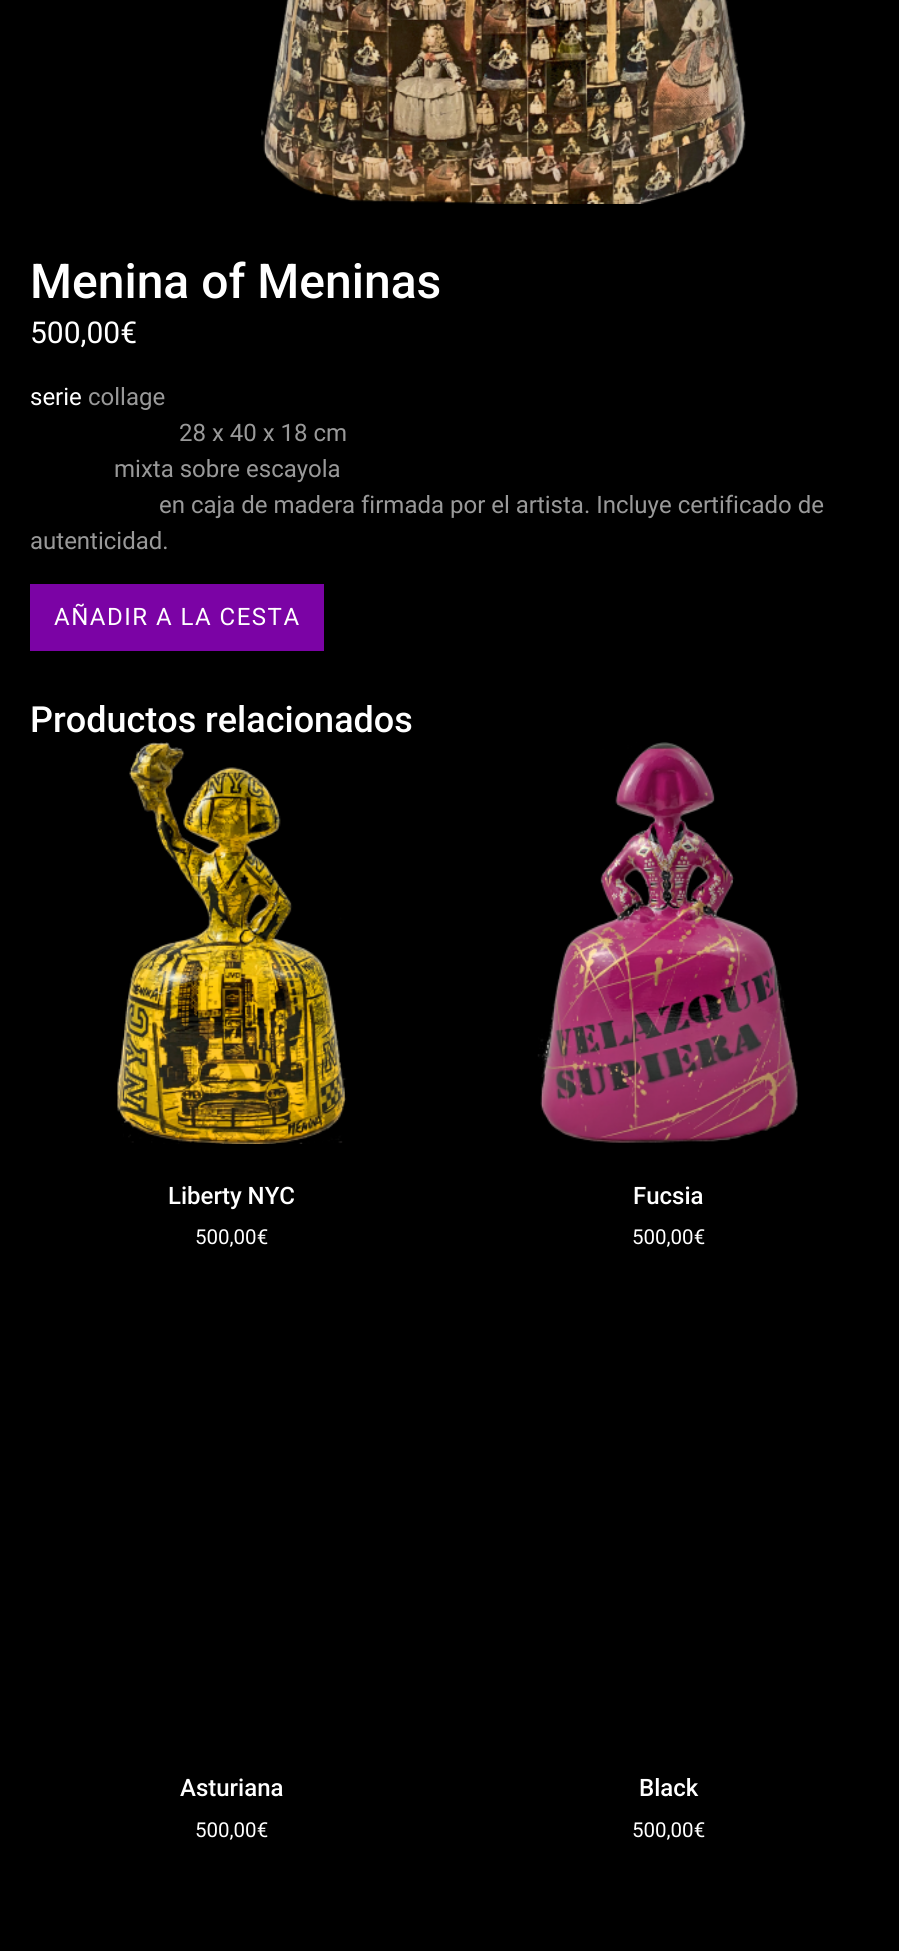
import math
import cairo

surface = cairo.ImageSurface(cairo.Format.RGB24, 899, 1951)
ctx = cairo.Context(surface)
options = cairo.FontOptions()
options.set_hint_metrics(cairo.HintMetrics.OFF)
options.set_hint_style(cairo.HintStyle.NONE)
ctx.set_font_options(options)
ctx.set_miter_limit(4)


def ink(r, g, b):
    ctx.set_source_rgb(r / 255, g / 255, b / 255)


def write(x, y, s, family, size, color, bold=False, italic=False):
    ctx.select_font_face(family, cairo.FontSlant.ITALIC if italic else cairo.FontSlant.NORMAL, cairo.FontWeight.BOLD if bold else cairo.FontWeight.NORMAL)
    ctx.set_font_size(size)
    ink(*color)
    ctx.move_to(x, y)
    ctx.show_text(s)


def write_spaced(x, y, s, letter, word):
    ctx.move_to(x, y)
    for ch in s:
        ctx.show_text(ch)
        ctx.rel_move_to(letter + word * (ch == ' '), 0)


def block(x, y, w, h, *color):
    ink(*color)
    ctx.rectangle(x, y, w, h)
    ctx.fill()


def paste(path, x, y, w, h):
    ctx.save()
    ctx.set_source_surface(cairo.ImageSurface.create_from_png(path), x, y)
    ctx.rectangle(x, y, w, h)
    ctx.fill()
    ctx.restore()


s1 = dict(family="Roboto Medium", size=48, color=(255, 255, 255))
s2 = dict(family="Roboto", size=30, color=(255, 255, 255))
s3 = dict(family="Roboto", size=24, color=(255, 255, 255))
s4 = dict(family="Roboto", size=24, color=(153, 153, 153))
s5 = dict(family="Roboto Medium", size=36, color=(255, 255, 255))
s6 = dict(family="Roboto Medium", size=24, color=(255, 255, 255))
s7 = dict(family="Roboto", size=20.5, color=(255, 255, 255))

ink(0, 0, 0)
ctx.paint()
paste("pic1.png", 261, 0, 485, 204)
write(30, 298, "Menina of Meninas", **s1)
write(30, 343, "500,00€", **s2)
write(30, 405, "serie", **s3)
write(88, 405, "collage", **s4)
write(179, 441, "28 x 40 x 18 cm", **s4)
write(114, 477, "mixta sobre escayola", **s4)
write(159, 513, "en caja de madera firmada por el artista. Incluye certificado de", **s4)
write(30, 549, "autenticidad.", **s4)
block(30, 584, 294, 67, 123, 3, 165)
ink(255, 255, 255)
write_spaced(54, 625, "AÑADIR A LA CESTA", 1.5, 0)
write(30, 732, "Productos relacionados", **s5)
paste("pic2.png", 117, 742, 230, 402)
write(168, 1204, "Liberty NYC", **s6)
write(195, 1244, "500,00€", **s7)
paste("pic3.png", 537, 742, 261, 401)
write(633, 1204, "Fucsia", **s6)
write(632, 1244, "500,00€", **s7)
write(180, 1796, "Asturiana", **s6)
write(195, 1837, "500,00€", **s7)
write(639, 1796, "Black", **s6)
write(632, 1837, "500,00€", **s7)
surface.write_to_png("screenshot.png")
